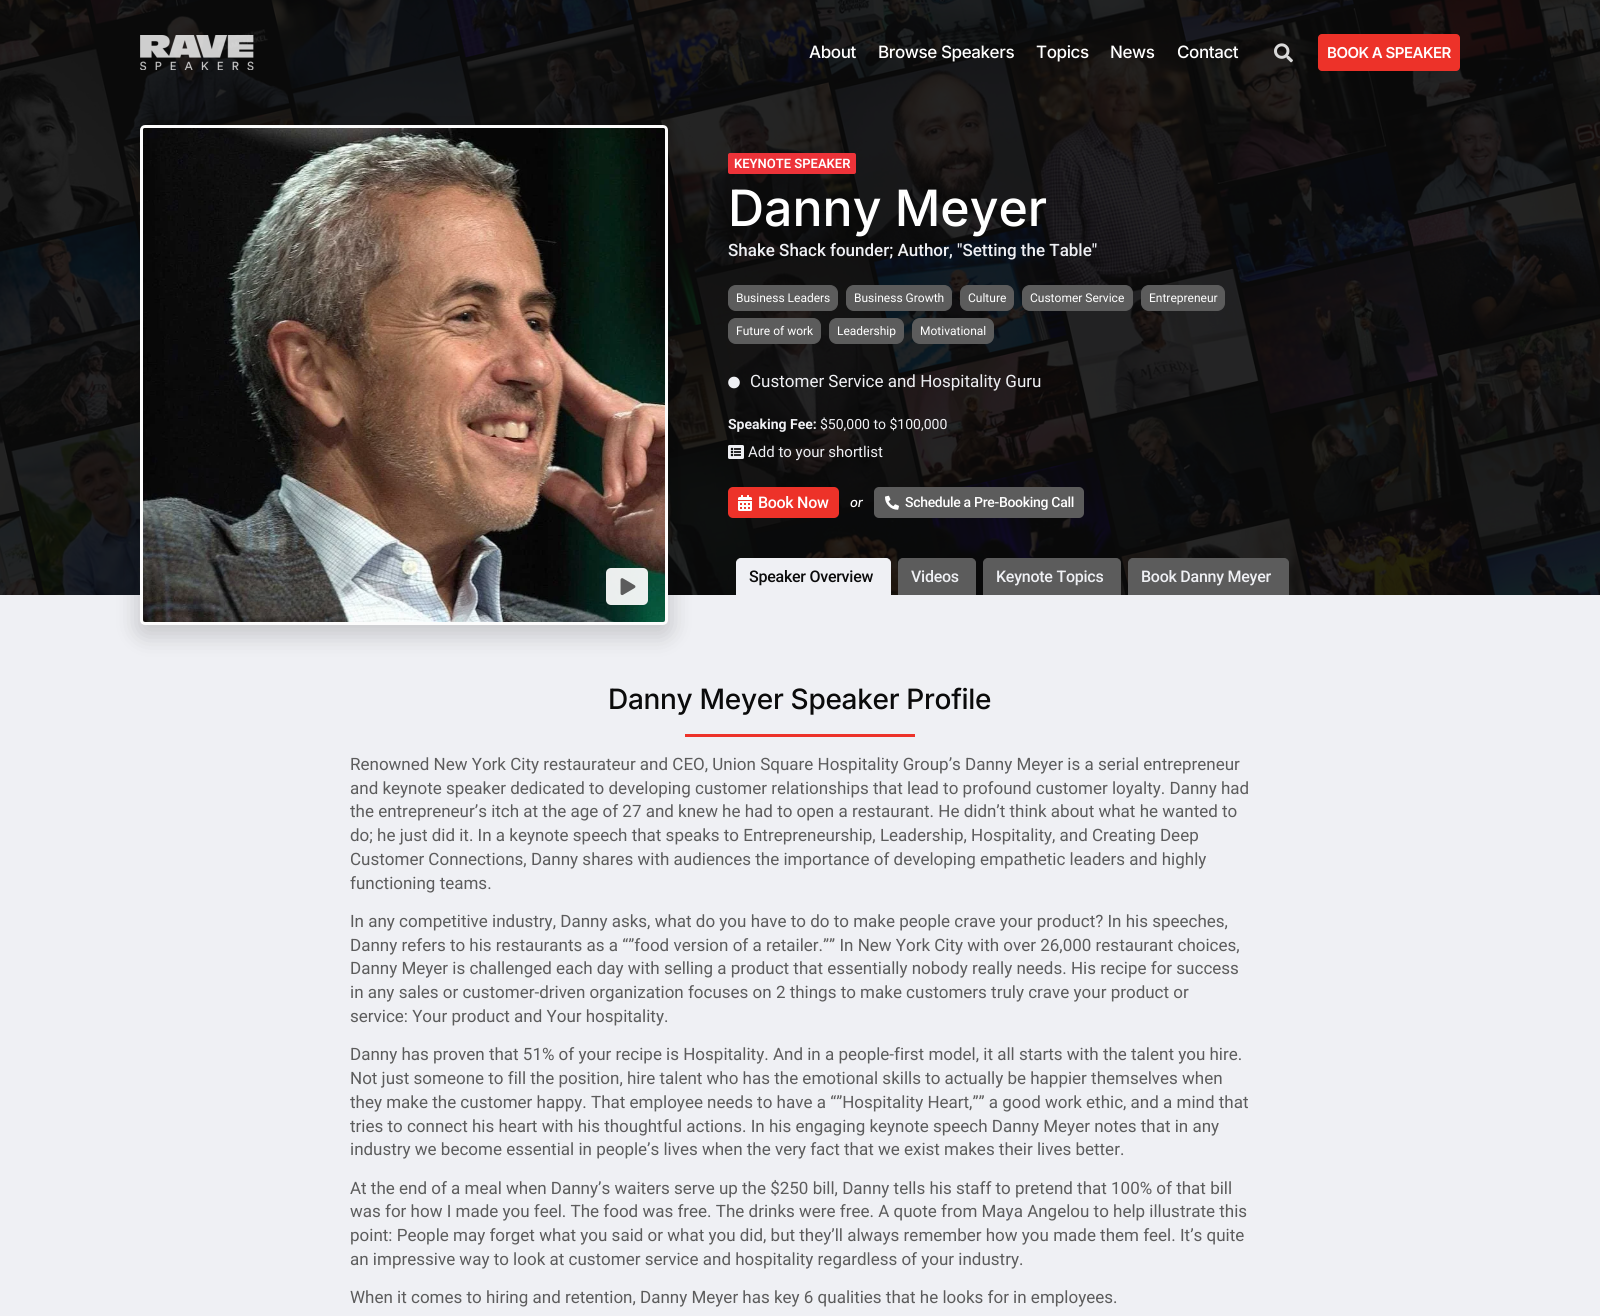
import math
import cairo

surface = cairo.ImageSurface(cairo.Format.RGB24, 1600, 1316)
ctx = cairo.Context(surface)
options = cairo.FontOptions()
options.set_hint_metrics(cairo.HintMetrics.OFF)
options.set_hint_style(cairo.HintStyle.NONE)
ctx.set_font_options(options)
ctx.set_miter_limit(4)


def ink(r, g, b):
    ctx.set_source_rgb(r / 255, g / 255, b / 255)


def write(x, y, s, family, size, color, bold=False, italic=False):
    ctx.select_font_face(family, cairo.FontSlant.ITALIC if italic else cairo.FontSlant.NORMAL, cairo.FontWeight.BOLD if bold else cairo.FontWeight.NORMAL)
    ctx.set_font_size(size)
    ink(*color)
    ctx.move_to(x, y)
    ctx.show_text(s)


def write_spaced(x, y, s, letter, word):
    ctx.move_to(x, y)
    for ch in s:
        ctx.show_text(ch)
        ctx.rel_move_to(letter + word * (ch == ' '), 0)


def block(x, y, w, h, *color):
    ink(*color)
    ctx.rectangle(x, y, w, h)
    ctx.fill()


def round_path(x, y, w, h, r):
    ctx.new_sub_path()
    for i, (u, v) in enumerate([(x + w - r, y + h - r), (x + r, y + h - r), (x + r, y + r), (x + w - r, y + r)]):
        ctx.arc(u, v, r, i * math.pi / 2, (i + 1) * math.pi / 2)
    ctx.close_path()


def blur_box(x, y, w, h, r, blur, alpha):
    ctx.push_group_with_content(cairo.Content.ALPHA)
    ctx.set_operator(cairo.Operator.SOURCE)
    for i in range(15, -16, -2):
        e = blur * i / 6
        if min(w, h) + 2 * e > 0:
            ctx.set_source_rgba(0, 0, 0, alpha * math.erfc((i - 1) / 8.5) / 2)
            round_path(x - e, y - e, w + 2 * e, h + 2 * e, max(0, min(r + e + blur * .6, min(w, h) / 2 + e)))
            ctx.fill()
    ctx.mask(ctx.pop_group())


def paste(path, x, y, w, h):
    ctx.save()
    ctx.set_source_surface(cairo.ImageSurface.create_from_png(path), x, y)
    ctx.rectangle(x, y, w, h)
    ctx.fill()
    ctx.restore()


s1 = dict(family="Roboto SemiBold", size=13, color=(255, 255, 255))
s2 = dict(family="Inter Medium", size=50, color=(255, 255, 255))
s3 = dict(family="Roboto Medium", size=17, color=(239, 240, 244))
s4 = dict(family="Roboto", size=12, color=(255, 255, 255))
s5 = dict(family="Roboto", size=17, color=(239, 240, 244))
s6 = dict(family="Roboto", size=14, color=(239, 240, 244), bold=True)
s7 = dict(family="Roboto", size=14, color=(239, 240, 244))
s8 = dict(family="Roboto", size=15, color=(239, 240, 244))
s9 = dict(family="Inter Medium", size=13, color=(255, 255, 255), italic=True)
s10 = dict(family="Roboto", size=17, color=(92, 92, 92))

ink(239, 240, 244)
ctx.paint()
paste("pic3.png", 0, 0, 1600, 595)
paste("pic1.png", 140, 35, 114, 35)
ctx.select_font_face("Inter Medium")
ctx.set_font_size(17)
ink(255, 255, 255)
write_spaced(809, 58, "About", -0.4, 0)
write_spaced(878, 58, "Browse Speakers", -0.4, 0)
write_spaced(1036, 58, "Topics", -0.4, 0)
write_spaced(1110, 58, "News", -0.4, 0)
write_spaced(1177, 58, "Contact", -0.4, 0)
paste("pic2.png", 1274, 43, 19, 20)
ink(237, 50, 41)
round_path(1318, 34, 142, 37, 4)
ctx.fill()
ctx.select_font_face("Inter SemiBold")
ctx.set_font_size(15)
ink(255, 255, 255)
write_spaced(1327, 58, "BOOK A SPEAKER", -0.5, 0)
ink(0, 0, 0)
blur_box(136, 129, 536, 508, 9, 11, 0.16)
round_path(141.5, 126.5, 525, 497, 3.5)
ink(252, 252, 252)
ctx.set_line_width(3)
ctx.stroke()
paste("pic4.png", 143, 128, 522, 494)
ctx.set_source_rgba(1, 1, 1, 0.92)
round_path(606, 568, 42, 37, 5)
ctx.fill()
paste("pic5.png", 620, 578, 16, 18)
ink(237, 51, 57)
round_path(728, 153, 128, 21, 2)
ctx.fill()
write(734, 168, "KEYNOTE SPEAKER", **s1)
write(728, 226, "Danny Meyer", **s2)
write(728, 256, "Shake Shack founder; Author, \"Setting the Table\"", **s3)
ink(92, 92, 92)
round_path(728.5, 285.5, 109, 25, 7.5)
ctx.fill_preserve()
ctx.set_line_width(1)
ctx.stroke()
write(736, 302, "Business Leaders", **s4)
ink(92, 92, 92)
round_path(846.5, 285.5, 105, 25, 7.5)
ctx.fill_preserve()
ctx.stroke()
write(854, 302, "Business Growth", **s4)
ink(92, 92, 92)
round_path(960.5, 285.5, 53, 25, 7.5)
ctx.fill_preserve()
ctx.stroke()
write(968, 302, "Culture", **s4)
ink(92, 92, 92)
round_path(1022.5, 285.5, 110, 25, 7.5)
ctx.fill_preserve()
ctx.stroke()
write(1030, 302, "Customer Service", **s4)
ink(92, 92, 92)
round_path(1141.5, 285.5, 83, 25, 7.5)
ctx.fill_preserve()
ctx.stroke()
write(1149, 302, "Entrepreneur", **s4)
ink(92, 92, 92)
round_path(728.5, 318.5, 92, 25, 7.5)
ctx.fill_preserve()
ctx.stroke()
write(736, 335, "Future of work", **s4)
ink(92, 92, 92)
round_path(829.5, 318.5, 74, 25, 7.5)
ctx.fill_preserve()
ctx.stroke()
write(837, 335, "Leadership", **s4)
ink(92, 92, 92)
round_path(912.5, 318.5, 81, 25, 7.5)
ctx.fill_preserve()
ctx.stroke()
write(920, 335, "Motivational", **s4)
paste("pic6.png", 728, 376, 12, 13)
write(750, 387, "Customer Service and Hospitality Guru", **s5)
write(728, 429, "Speaking Fee:", **s6)
write(820, 429, "$50,000 to $100,000", **s7)
paste("pic7.png", 728, 445, 16, 14)
write(748, 457, "Add to your shortlist", **s8)
ink(237, 50, 41)
round_path(728, 487, 111, 31, 5)
ctx.fill()
paste("pic8.png", 738, 495, 14, 16)
ctx.select_font_face("Roboto Medium")
ctx.set_font_size(16)
ink(255, 255, 255)
write_spaced(758, 508, "Book Now", -0.3, 0)
write(850, 507, "or", **s9)
ink(92, 92, 92)
round_path(874, 487, 210, 31, 5)
ctx.fill()
paste("pic9.png", 885, 495, 14, 15)
ctx.select_font_face("Roboto Medium")
ctx.set_font_size(14)
ink(255, 255, 255)
write_spaced(905, 507, "Schedule a Pre-Booking Call", -0.3, 0)
ink(239, 240, 244)
ctx.new_path()
ctx.move_to(741, 558.5)
ctx.line_to(886, 558.5)
ctx.curve_to(888.5, 558.5, 890.5, 560.5, 890.5, 563)
ctx.line_to(890.5, 594.5)
ctx.line_to(736.5, 594.5)
ctx.line_to(736.5, 563)
ctx.curve_to(736.5, 560.5, 738.5, 558.5, 741, 558.5)
ctx.close_path()
ctx.fill_preserve()
ctx.stroke()
ctx.set_font_size(16)
ink(11, 11, 11)
write_spaced(749, 582, "Speaker Overview", -0.25, 0)
ink(92, 92, 92)
ctx.new_path()
ctx.move_to(903, 558.5)
ctx.line_to(971, 558.5)
ctx.curve_to(973.5, 558.5, 975.5, 560.5, 975.5, 563)
ctx.line_to(975.5, 594.5)
ctx.line_to(898.5, 594.5)
ctx.line_to(898.5, 563)
ctx.curve_to(898.5, 560.5, 900.5, 558.5, 903, 558.5)
ctx.close_path()
ctx.fill_preserve()
ctx.stroke()
ink(239, 240, 244)
write_spaced(911, 582, "Videos", -0.25, 0)
ink(92, 92, 92)
ctx.new_path()
ctx.move_to(988, 558.5)
ctx.line_to(1116, 558.5)
ctx.curve_to(1118.5, 558.5, 1120.5, 560.5, 1120.5, 563)
ctx.line_to(1120.5, 594.5)
ctx.line_to(983.5, 594.5)
ctx.line_to(983.5, 563)
ctx.curve_to(983.5, 560.5, 985.5, 558.5, 988, 558.5)
ctx.close_path()
ctx.fill_preserve()
ctx.stroke()
ink(239, 240, 244)
write_spaced(996, 582, "Keynote Topics", -0.25, 0)
ink(92, 92, 92)
ctx.new_path()
ctx.move_to(1133, 558.5)
ctx.line_to(1284, 558.5)
ctx.curve_to(1286.5, 558.5, 1288.5, 560.5, 1288.5, 563)
ctx.line_to(1288.5, 594.5)
ctx.line_to(1128.5, 594.5)
ctx.line_to(1128.5, 563)
ctx.curve_to(1128.5, 560.5, 1130.5, 558.5, 1133, 558.5)
ctx.close_path()
ctx.fill_preserve()
ctx.stroke()
ink(239, 240, 244)
write_spaced(1141, 582, "Book Danny Meyer", -0.25, 0)
ctx.select_font_face("Inter Medium")
ctx.set_font_size(28)
ink(11, 11, 11)
write_spaced(608, 709, "Danny Meyer Speaker Profile", -0.3, 0)
block(685, 734, 230, 3, 237, 50, 41)
write(350, 770, "Renowned New York City restaurateur and CEO, Union Square Hospitality Group’s Danny Meyer is a serial entrepreneur", **s10)
write(350, 794, "and keynote speaker dedicated to developing customer relationships that lead to profound customer loyalty. Danny had", **s10)
write(350, 817, "the entrepreneur’s itch at the age of 27 and knew he had to open a restaurant. He didn’t think about what he wanted to", **s10)
write(350, 841, "do; he just did it. In a keynote speech that speaks to Entrepreneurship, Leadership, Hospitality, and Creating Deep", **s10)
write(350, 865, "Customer Connections, Danny shares with audiences the importance of developing empathetic leaders and highly", **s10)
write(350, 889, "functioning teams.", **s10)
write(350, 927, "In any competitive industry, Danny asks, what do you have to do to make people crave your product? In his speeches,", **s10)
write(350, 951, "Danny refers to his restaurants as a “”food version of a retailer.”” In New York City with over 26,000 restaurant choices,", **s10)
write(350, 974, "Danny Meyer is challenged each day with selling a product that essentially nobody really needs. His recipe for success", **s10)
write(350, 998, "in any sales or customer-driven organization focuses on 2 things to make customers truly crave your product or", **s10)
write(350, 1022, "service: Your product and Your hospitality.", **s10)
write(350, 1060, "Danny has proven that 51% of your recipe is Hospitality. And in a people-first model, it all starts with the talent you hire.", **s10)
write(350, 1084, "Not just someone to fill the position, hire talent who has the emotional skills to actually be happier themselves when", **s10)
write(350, 1108, "they make the customer happy. That employee needs to have a “”Hospitality Heart,”” a good work ethic, and a mind that", **s10)
write(350, 1132, "tries to connect his heart with his thoughtful actions. In his engaging keynote speech Danny Meyer notes that in any", **s10)
write(350, 1155, "industry we become essential in people’s lives when the very fact that we exist makes their lives better.", **s10)
write(350, 1194, "At the end of a meal when Danny’s waiters serve up the $250 bill, Danny tells his staff to pretend that 100% of that bill", **s10)
write(350, 1217, "was for how I made you feel. The food was free. The drinks were free. A quote from Maya Angelou to help illustrate this", **s10)
write(350, 1241, "point: People may forget what you said or what you did, but they’ll always remember how you made them feel. It’s quite", **s10)
write(350, 1265, "an impressive way to look at customer service and hospitality regardless of your industry.", **s10)
write(350, 1303, "When it comes to hiring and retention, Danny Meyer has key 6 qualities that he looks for in employees.", **s10)
surface.write_to_png("screenshot.png")
